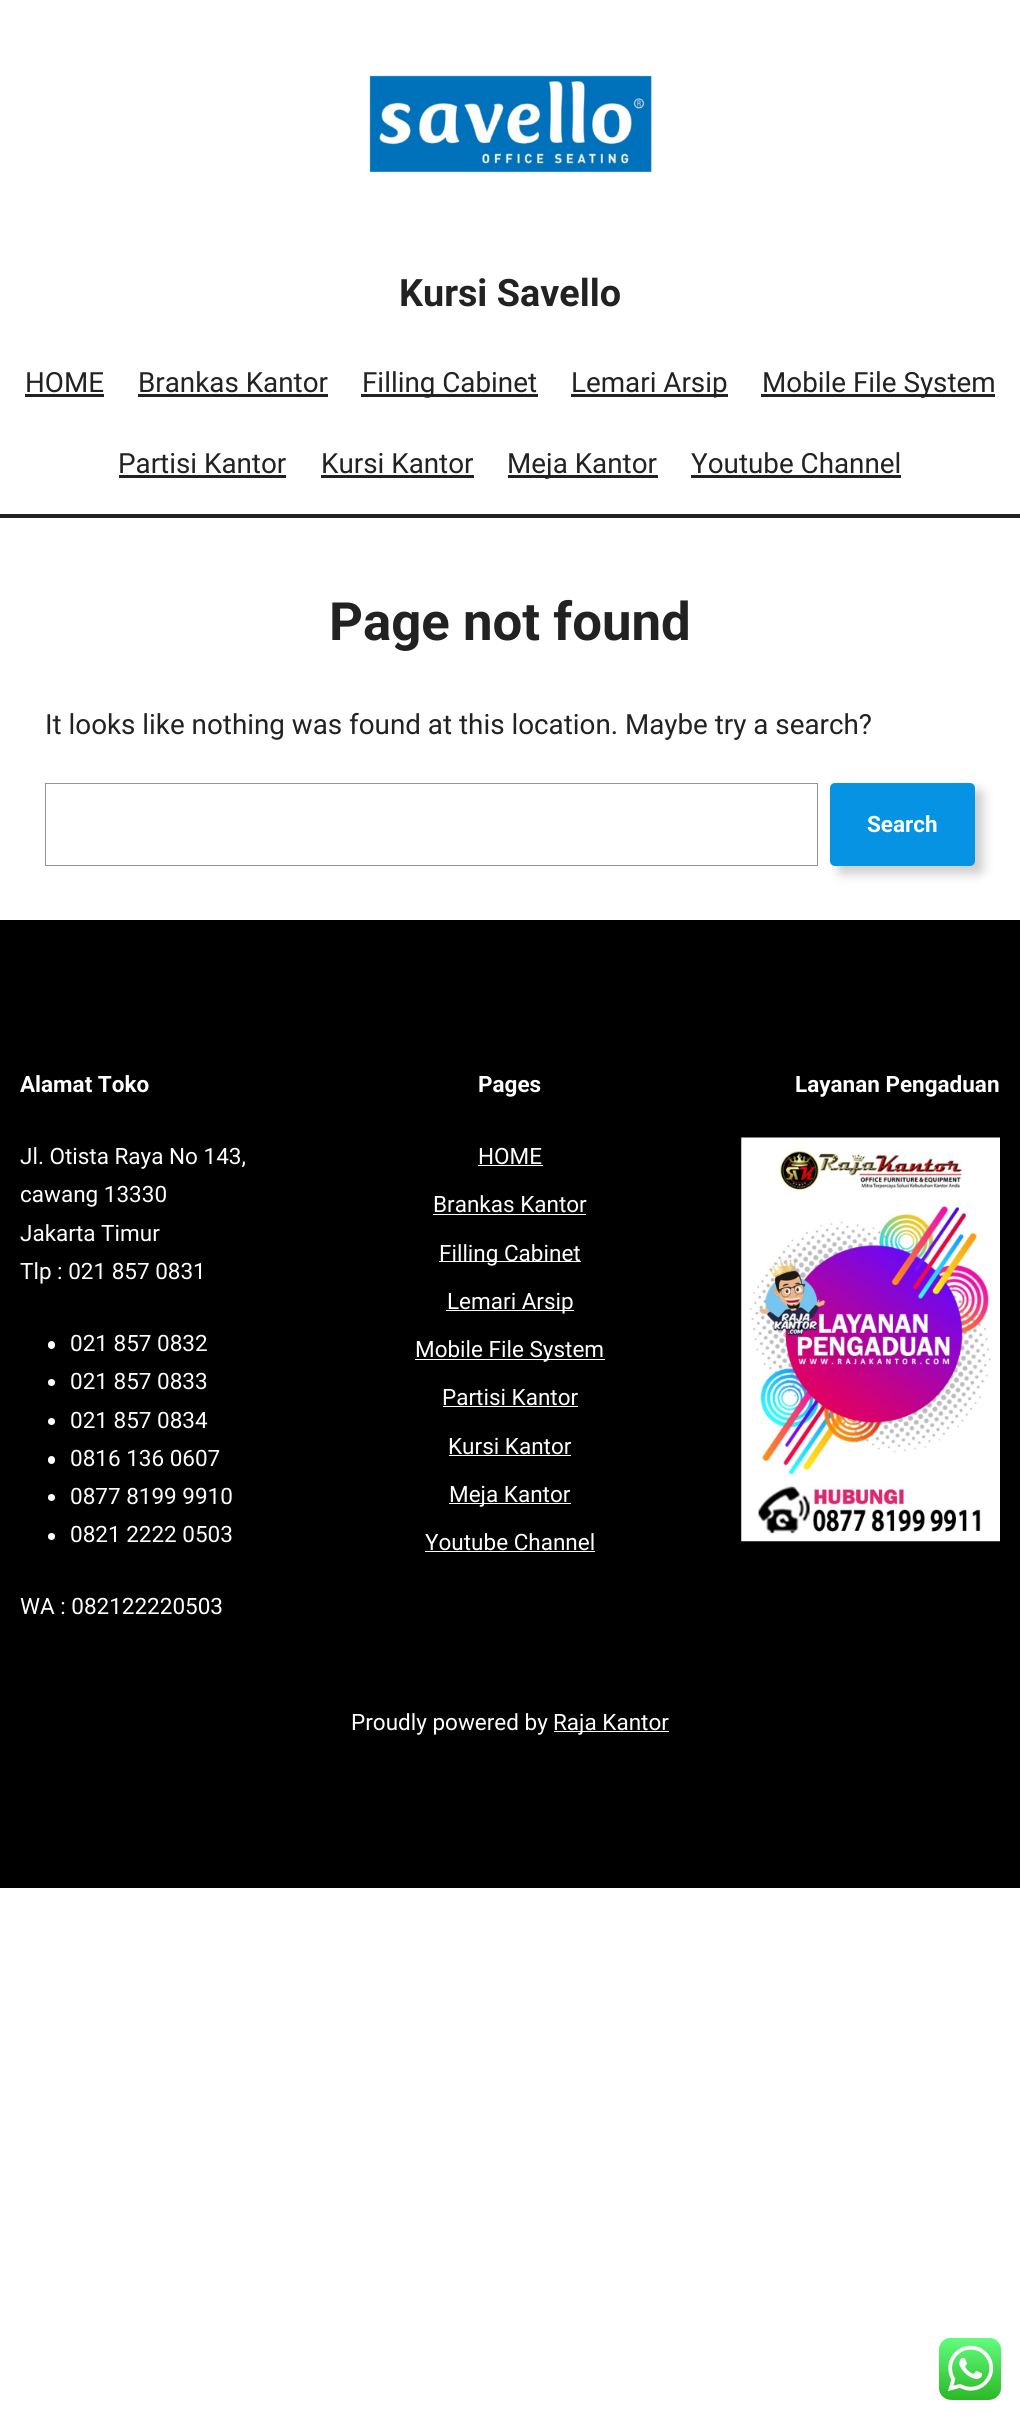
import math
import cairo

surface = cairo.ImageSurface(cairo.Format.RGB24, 1020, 2418)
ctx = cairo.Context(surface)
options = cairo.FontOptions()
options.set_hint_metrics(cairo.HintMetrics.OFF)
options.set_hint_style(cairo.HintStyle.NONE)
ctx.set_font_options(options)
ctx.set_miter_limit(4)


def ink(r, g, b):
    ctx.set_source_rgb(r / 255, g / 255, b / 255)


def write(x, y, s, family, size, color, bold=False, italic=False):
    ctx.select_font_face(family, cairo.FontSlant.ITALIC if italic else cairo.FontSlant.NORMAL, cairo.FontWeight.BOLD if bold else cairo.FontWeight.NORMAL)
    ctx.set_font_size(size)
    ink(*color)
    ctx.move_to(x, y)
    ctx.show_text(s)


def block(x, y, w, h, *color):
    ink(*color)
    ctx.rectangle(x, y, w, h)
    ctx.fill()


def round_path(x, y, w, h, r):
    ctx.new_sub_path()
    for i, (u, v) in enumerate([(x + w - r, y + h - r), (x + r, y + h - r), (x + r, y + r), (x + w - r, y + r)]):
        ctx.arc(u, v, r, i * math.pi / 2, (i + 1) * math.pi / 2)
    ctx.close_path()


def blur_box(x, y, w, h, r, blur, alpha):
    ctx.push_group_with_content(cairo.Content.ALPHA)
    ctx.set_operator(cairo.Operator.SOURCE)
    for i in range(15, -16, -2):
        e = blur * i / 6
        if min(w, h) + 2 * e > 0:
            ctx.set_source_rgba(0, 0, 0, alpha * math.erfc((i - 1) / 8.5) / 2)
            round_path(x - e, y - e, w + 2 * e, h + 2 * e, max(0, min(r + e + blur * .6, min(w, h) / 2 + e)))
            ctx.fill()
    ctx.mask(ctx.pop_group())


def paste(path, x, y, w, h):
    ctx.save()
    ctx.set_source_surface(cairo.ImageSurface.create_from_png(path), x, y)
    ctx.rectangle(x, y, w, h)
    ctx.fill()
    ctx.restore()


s1 = dict(family="Roboto", size=37.75, color=(34, 34, 34), bold=True)
s2 = dict(family="Roboto", size=27.8, color=(34, 34, 34))
s3 = dict(family="Roboto", size=52.75, color=(34, 34, 34), bold=True)
s4 = dict(family="Roboto", size=22.5, color=(255, 255, 255), bold=True)
s5 = dict(family="Roboto", size=22.5, color=(255, 255, 255))

ink(255, 255, 255)
ctx.paint()
paste("pic1.png", 369, 75, 283, 98)
write(399, 306, "Kursi Savello", **s1)
write(25, 392, "HOME", **s2)
block(25, 394, 79, 3, 34, 34, 34)
write(138, 392, "Brankas Kantor", **s2)
block(138, 394, 190, 3, 34, 34, 34)
block(361, 394, 177, 3, 34, 34, 34)
write(362, 392, "Filling Cabinet", **s2)
block(571, 394, 157, 3, 34, 34, 34)
write(571, 392, "Lemari Arsip", **s2)
block(761, 394, 234, 3, 34, 34, 34)
write(762, 392, "Mobile File System", **s2)
write(118, 473, "Partisi Kantor", **s2)
block(119, 475, 167, 3, 34, 34, 34)
write(321, 473, "Kursi Kantor", **s2)
block(321, 475, 153, 3, 34, 34, 34)
block(508, 475, 150, 3, 34, 34, 34)
write(507, 473, "Meja Kantor", **s2)
write(691, 473, "Youtube Channel", **s2)
block(691, 475, 210, 3, 34, 34, 34)
block(0, 514, 1020, 4, 34, 34, 34)
write(329, 640, "Page not found", **s3)
write(45, 734, "It looks like nothing was found at this location. Maybe try a search?", **s2)
ctx.rectangle(45.5, 783.5, 772, 82)
ink(148, 148, 148)
ctx.set_line_width(1)
ctx.stroke()
ink(0, 0, 0)
blur_box(838, 790, 145, 84, 5, 5.5, 0.2)
ink(6, 147, 227)
round_path(830, 783, 145, 83, 5)
ctx.fill()
write(867, 832, "Search", **s4)
block(0, 920, 1020, 968, 0, 0, 0)
write(20, 1092, "Alamat Toko", **s4)
write(20, 1164, "Jl. Otista Raya No 143,", **s5)
write(20, 1202, "cawang 13330", **s5)
write(20, 1241, "Jakarta Timur", **s5)
write(20, 1279, "Tlp : 021 857 0831", **s5)
round_path(48, 1341, 7, 8, 3.5)
ctx.fill()
write(70, 1351, "021 857 0832", **s5)
ctx.new_path()
ctx.arc(51.5, 1382.5, 3.5, 0, 2 * math.pi)
ctx.fill()
write(70, 1389, "021 857 0833", **s5)
ctx.new_path()
ctx.arc(51.5, 1421.5, 3.5, 0, 2 * math.pi)
ctx.fill()
write(70, 1428, "021 857 0834", **s5)
round_path(48, 1456, 7, 8, 3.5)
ctx.fill()
write(70, 1466, "0816 136 0607", **s5)
ctx.new_path()
ctx.arc(51.5, 1497.5, 3.5, 0, 2 * math.pi)
ctx.fill()
write(70, 1504, "0877 8199 9910", **s5)
ctx.new_path()
ctx.arc(51.5, 1536.5, 3.5, 0, 2 * math.pi)
ctx.fill()
write(70, 1542, "0821 2222 0503", **s5)
write(20, 1614, "WA : 082122220503", **s5)
write(478, 1092, "Pages", **s4)
write(478, 1164, "HOME", **s5)
block(478, 1165, 65, 1, 255, 255, 255)
write(433, 1212, "Brankas Kantor", **s5)
block(433, 1214, 153, 1, 255, 255, 255)
block(439, 1261, 142, 1, 255, 255, 255)
write(439, 1261, "Filling Cabinet", **s5)
block(446, 1310, 128, 1, 255, 255, 255)
write(447, 1309, "Lemari Arsip", **s5)
block(415, 1359, 190, 1, 255, 255, 255)
write(415, 1357, "Mobile File System", **s5)
write(442, 1405, "Partisi Kantor", **s5)
block(443, 1406, 135, 1, 255, 255, 255)
write(448, 1454, "Kursi Kantor", **s5)
block(449, 1455, 122, 1, 255, 255, 255)
block(449, 1503, 122, 1, 255, 255, 255)
write(449, 1502, "Meja Kantor", **s5)
write(425, 1550, "Youtube Channel", **s5)
block(425, 1551, 170, 1, 255, 255, 255)
write(795, 1092, "Layanan Pengaduan", **s4)
paste("pic2.png", 741, 1137, 259, 405)
write(351, 1730, "Proudly powered by", **s5)
block(554, 1731, 115, 1, 255, 255, 255)
write(553, 1730, "Raja Kantor", **s5)
paste("pic3.png", 939, 2338, 62, 62)
surface.write_to_png("screenshot.png")
